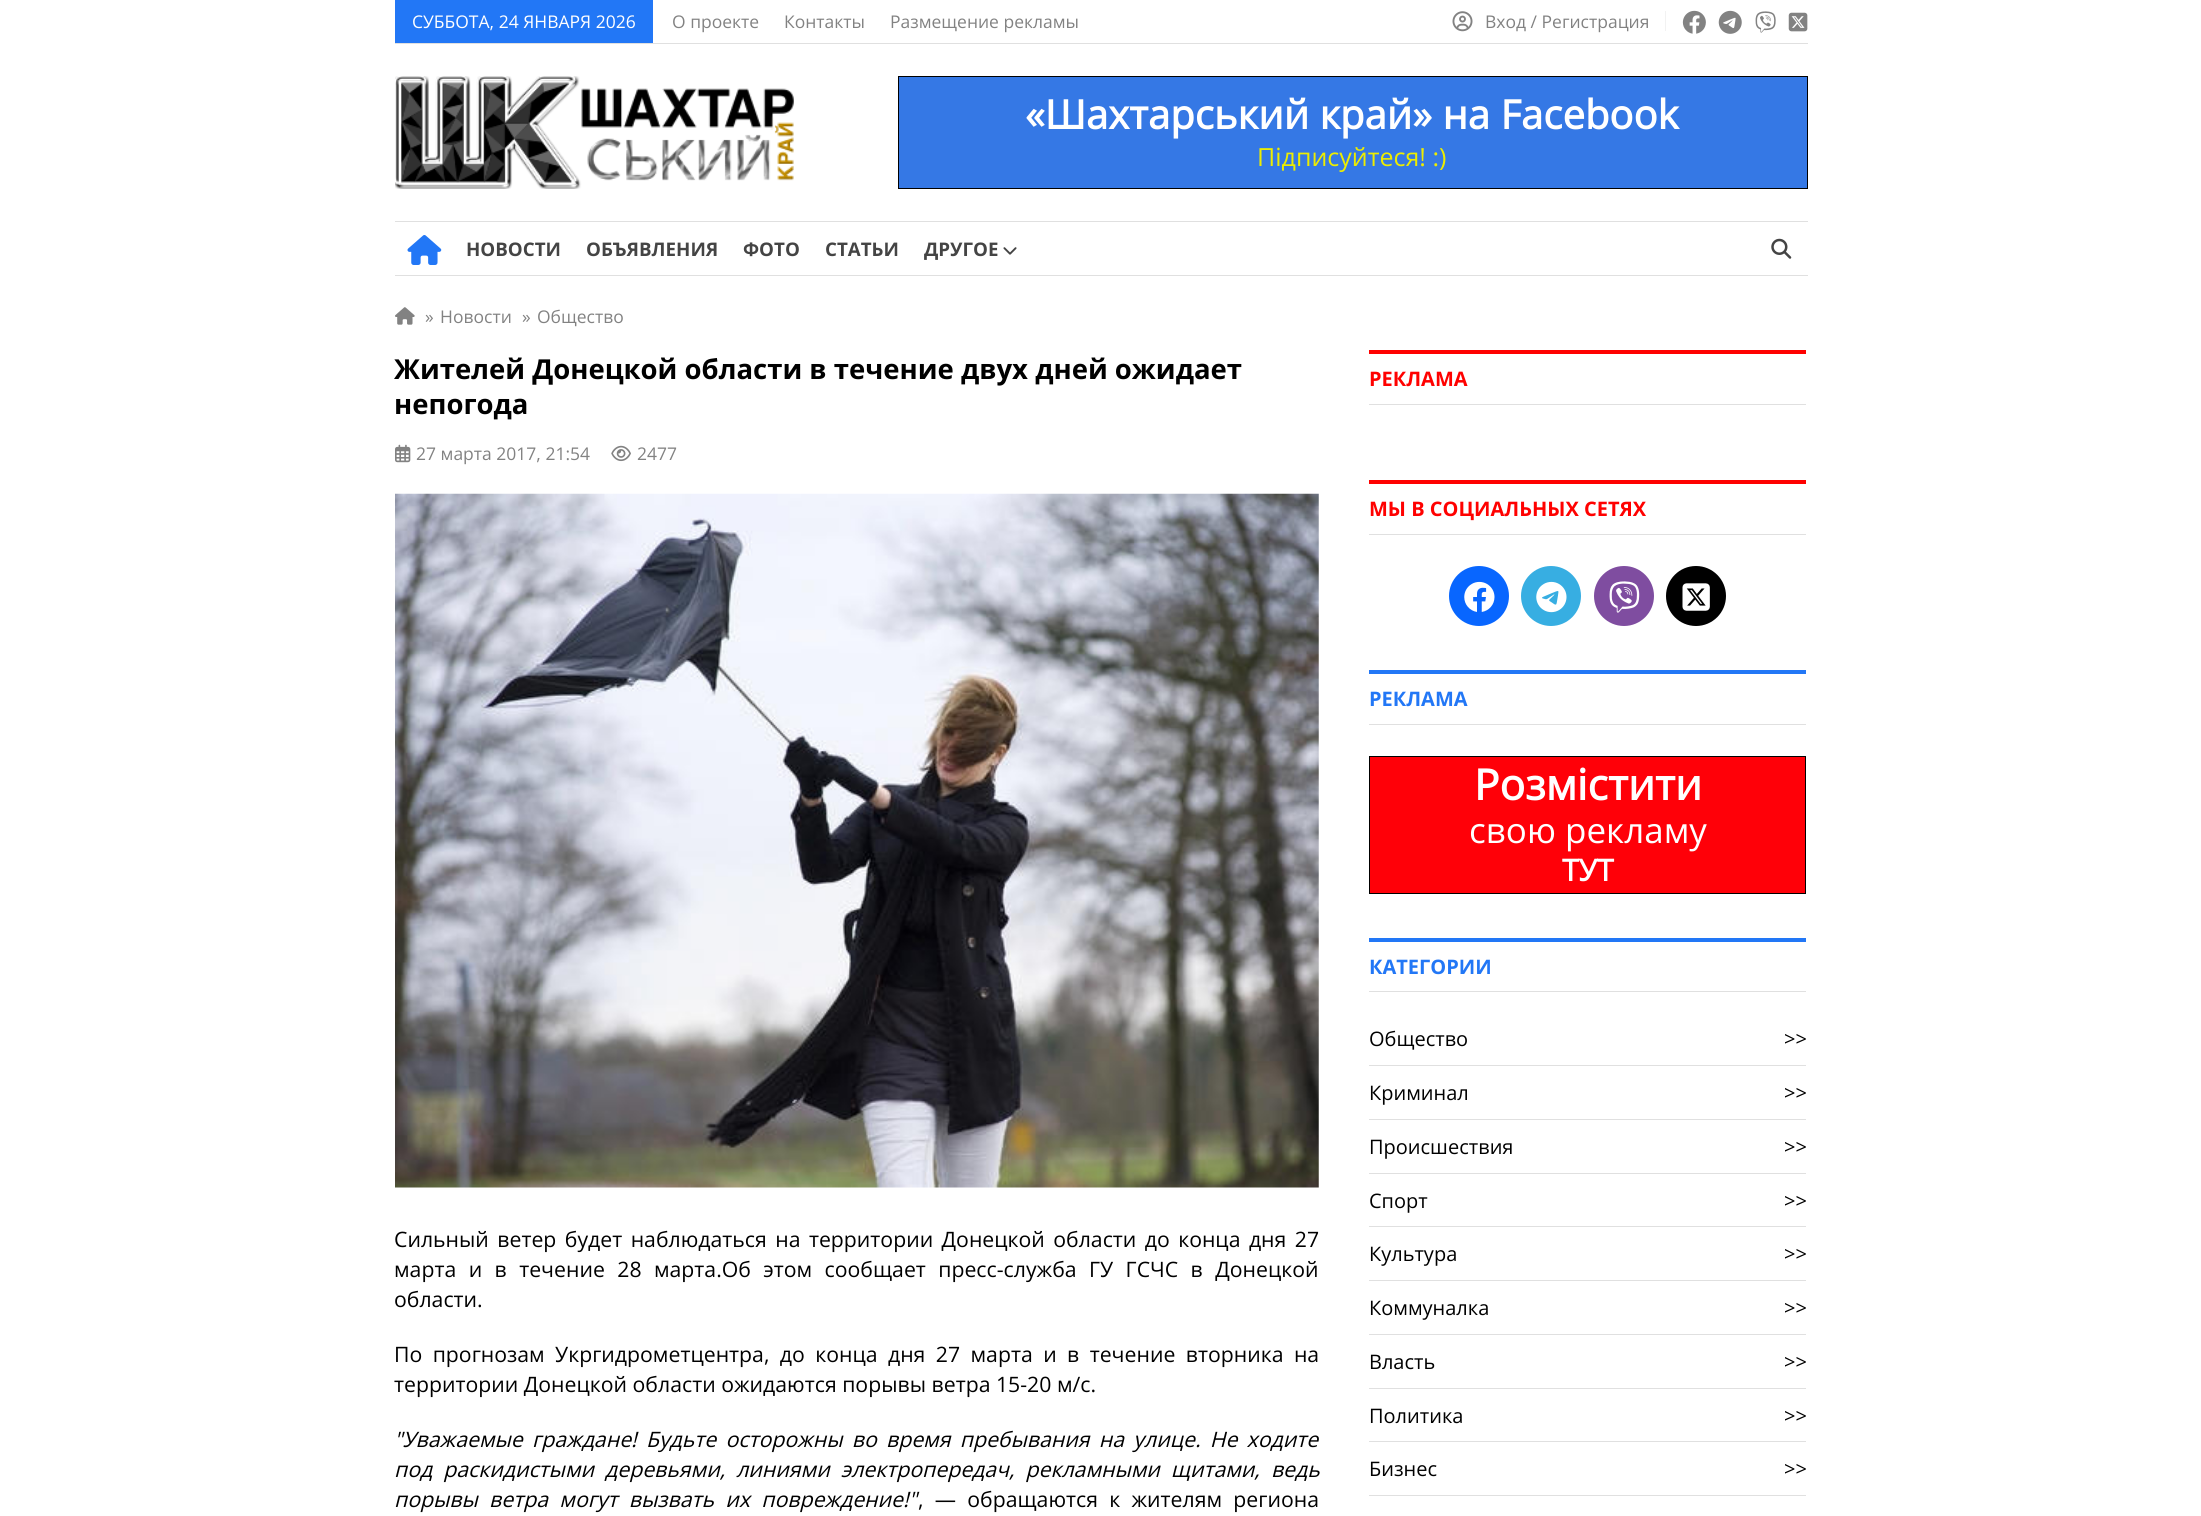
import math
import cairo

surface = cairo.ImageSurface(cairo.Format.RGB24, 2201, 1516)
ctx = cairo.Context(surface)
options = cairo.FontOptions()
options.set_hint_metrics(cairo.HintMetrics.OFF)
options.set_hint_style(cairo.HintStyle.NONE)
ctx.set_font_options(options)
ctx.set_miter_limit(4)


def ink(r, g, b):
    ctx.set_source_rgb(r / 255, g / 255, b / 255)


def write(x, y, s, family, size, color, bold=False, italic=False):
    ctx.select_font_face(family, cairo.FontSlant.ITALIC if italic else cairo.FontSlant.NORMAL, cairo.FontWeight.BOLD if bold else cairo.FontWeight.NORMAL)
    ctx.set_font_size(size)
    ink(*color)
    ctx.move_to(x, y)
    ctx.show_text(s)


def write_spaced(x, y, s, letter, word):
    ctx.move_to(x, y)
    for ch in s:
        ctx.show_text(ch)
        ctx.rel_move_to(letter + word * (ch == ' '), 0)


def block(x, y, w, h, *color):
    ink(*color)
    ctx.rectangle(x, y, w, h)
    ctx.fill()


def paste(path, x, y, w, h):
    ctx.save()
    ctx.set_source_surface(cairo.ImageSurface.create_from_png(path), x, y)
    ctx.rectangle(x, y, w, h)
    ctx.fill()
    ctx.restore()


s1 = dict(family="Open Sans", size=17.5, color=(255, 255, 255))
s2 = dict(family="Open Sans", size=17.5, color=(130, 130, 130))
s3 = dict(family="Open Sans", size=40, color=(255, 255, 255), bold=True)
s4 = dict(family="Open Sans", size=25, color=(237, 237, 0))
s5 = dict(family="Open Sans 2", size=18.75, color=(68, 68, 68), bold=True)
s6 = dict(family="Open Sans 2", size=27.5, color=(0, 0, 0), bold=True)
s7 = dict(family="Open Sans", size=21.25, color=(0, 0, 0))
s8 = dict(family="Open Sans 2", size=20, color=(255, 1, 0), bold=True)
s9 = dict(family="Open Sans 2", size=20, color=(34, 119, 246), bold=True)
s10 = dict(family="Open Sans", size=42.5, color=(255, 255, 255), bold=True)
s11 = dict(family="Open Sans", size=35, color=(255, 255, 255))
s12 = dict(family="Open Sans", size=30, color=(255, 255, 255), bold=True)
s13 = dict(family="Open Sans", size=20, color=(0, 0, 0))

ink(255, 255, 255)
ctx.paint()
block(395, 43, 1413, 1, 224, 224, 224)
block(395, 0, 258, 43, 34, 119, 246)
write(412, 28, "СУББОТА, 24 ЯНВАРЯ 2026", **s1)
write(672, 28, "О проекте", **s2)
write(784, 28, "Контакты", **s2)
write(890, 28, "Размещение рекламы", **s2)
block(1665, 11, 1, 20, 242, 242, 242)
paste("pic1.png", 1452, 11, 21, 21)
write(1485, 28, "Вход / Регистрация", **s2)
paste("pic2.png", 1682, 10, 24, 24)
paste("pic3.png", 1718, 10, 24, 24)
paste("pic4.png", 1755, 11, 21, 22)
paste("pic5.png", 1788, 12, 20, 20)
block(395, 221, 1413, 1, 224, 224, 224)
paste("pic6.png", 395, 76, 399, 113)
block(899, 77, 908, 111, 53, 120, 229)
ctx.rectangle(898.5, 76.5, 909, 112)
ink(0, 0, 0)
ctx.set_line_width(1)
ctx.stroke()
write(1025, 129, "«Шахтарський край» на Facebook", **s3)
write(1257, 166, "Підписуйтеся! :)", **s4)
block(395, 275, 1413, 1, 224, 224, 224)
paste("pic7.png", 407, 235, 35, 30)
write(466, 256, "НОВОСТИ", **s5)
write(586, 256, "ОБЪЯВЛЕНИЯ", **s5)
write(743, 256, "ФОТО", **s5)
write(825, 256, "СТАТЬИ", **s5)
write(924, 256, "ДРУГОЕ", **s5)
paste("pic8.png", 1003, 247, 14, 8)
paste("pic9.png", 1771, 238, 21, 21)
paste("pic10.png", 395, 307, 20, 18)
write(425, 323, "»", **s2)
write(440, 323, "Новости", **s2)
write(522, 323, "»", **s2)
write(537, 323, "Общество", **s2)
write(394, 379, "Жителей Донецкой области в течение двух дней ожидает", **s6)
write(394, 414, "непогода", **s6)
paste("pic11.png", 395, 444, 16, 19)
write(416, 460, "27 марта 2017, 21:54", **s2)
paste("pic12.png", 611, 445, 20, 17)
write(637, 460, "2477", **s2)
paste("pic13.png", 395, 493, 924, 695)
ctx.set_font_size(21.25)
ink(0, 0, 0)
write_spaced(394, 1247, "Сильный ветер будет наблюдаться на территории Донецкой области до конца дня 27", 0, 2.9)
write_spaced(394, 1277, "марта и в течение 28 марта.Об этом сообщает пресс-служба ГУ ГСЧС в Донецкой", 0, 6.9)
write(394, 1307, "области.", **s7)
write_spaced(394, 1362, "По прогнозам Укргидрометцентра, до конца дня 27 марта и в течение вторника на", 0, 4.9)
write(394, 1392, "территории Донецкой области ожидаются порывы ветра 15-20 м/с.", **s7)
ctx.select_font_face("Open Sans", cairo.FontSlant.ITALIC)
write_spaced(394, 1447, "\"Уважаемые граждане! Будьте осторожны во время пребывания на улице. Не ходите", 0, 3.75)
write_spaced(394, 1477, "под раскидистыми деревьями, линиями электропередач, рекламными щитами, ведь", 0, 5.5)
write_spaced(394, 1507, "порывы ветра могут вызвать их повреждение!\"", 0, 5.75)
ctx.select_font_face("Open Sans")
write_spaced(918, 1507, ", — обращаются к жителям региона", 0, 5.75)
block(1369, 350, 437, 4, 255, 1, 0)
block(1369, 404, 437, 1, 224, 224, 224)
write(1369, 386, "РЕКЛАМА", **s8)
block(1369, 480, 437, 4, 255, 1, 0)
block(1369, 534, 437, 1, 224, 224, 224)
write(1369, 516, "МЫ В СОЦИАЛЬНЫХ СЕТЯХ", **s8)
ink(8, 102, 255)
ctx.new_path()
ctx.arc(1479, 596, 30, 0, 2 * math.pi)
ctx.fill()
paste("pic14.png", 1464, 581, 31, 31)
ink(55, 174, 226)
ctx.arc(1551, 596, 30, 0, 2 * math.pi)
ctx.fill()
paste("pic15.png", 1536, 581, 31, 32)
ink(127, 77, 160)
ctx.arc(1624, 596, 30, 0, 2 * math.pi)
ctx.fill()
paste("pic16.png", 1609, 581, 31, 32)
ink(0, 0, 0)
ctx.arc(1696, 596, 30, 0, 2 * math.pi)
ctx.fill()
paste("pic17.png", 1682, 583, 28, 28)
block(1369, 670, 437, 4, 34, 119, 246)
block(1369, 724, 437, 1, 224, 224, 224)
write(1369, 706, "РЕКЛАМА", **s9)
block(1370, 757, 435, 136, 255, 0, 8)
ctx.rectangle(1369.5, 756.5, 436, 137)
ink(0, 0, 0)
ctx.stroke()
write(1474, 800, "Розмістити", **s10)
write(1469, 843, "свою рекламу", **s11)
write(1562, 881, "ТУТ", **s12)
block(1369, 938, 437, 4, 34, 119, 246)
block(1369, 991, 437, 1, 224, 224, 224)
write(1369, 974, "КАТЕГОРИИ", **s9)
block(1369, 1065, 437, 1, 224, 224, 224)
write(1369, 1046, "Общество", **s13)
write(1784, 1046, ">>", **s13)
block(1369, 1119, 437, 1, 224, 224, 224)
write(1369, 1100, "Криминал", **s13)
write(1784, 1100, ">>", **s13)
block(1369, 1173, 437, 1, 224, 224, 224)
write(1369, 1154, "Происшествия", **s13)
write(1784, 1154, ">>", **s13)
block(1369, 1226, 437, 1, 224, 224, 224)
write(1369, 1208, "Спорт", **s13)
write(1784, 1208, ">>", **s13)
block(1369, 1280, 437, 1, 224, 224, 224)
write(1369, 1261, "Культура", **s13)
write(1784, 1261, ">>", **s13)
block(1369, 1334, 437, 1, 224, 224, 224)
write(1369, 1315, "Коммуналка", **s13)
write(1784, 1315, ">>", **s13)
block(1369, 1388, 437, 1, 224, 224, 224)
write(1369, 1369, "Власть", **s13)
write(1784, 1369, ">>", **s13)
block(1369, 1441, 437, 1, 224, 224, 224)
write(1369, 1423, "Политика", **s13)
write(1784, 1423, ">>", **s13)
block(1369, 1495, 437, 1, 224, 224, 224)
write(1369, 1476, "Бизнес", **s13)
write(1784, 1476, ">>", **s13)
surface.write_to_png("screenshot.png")
